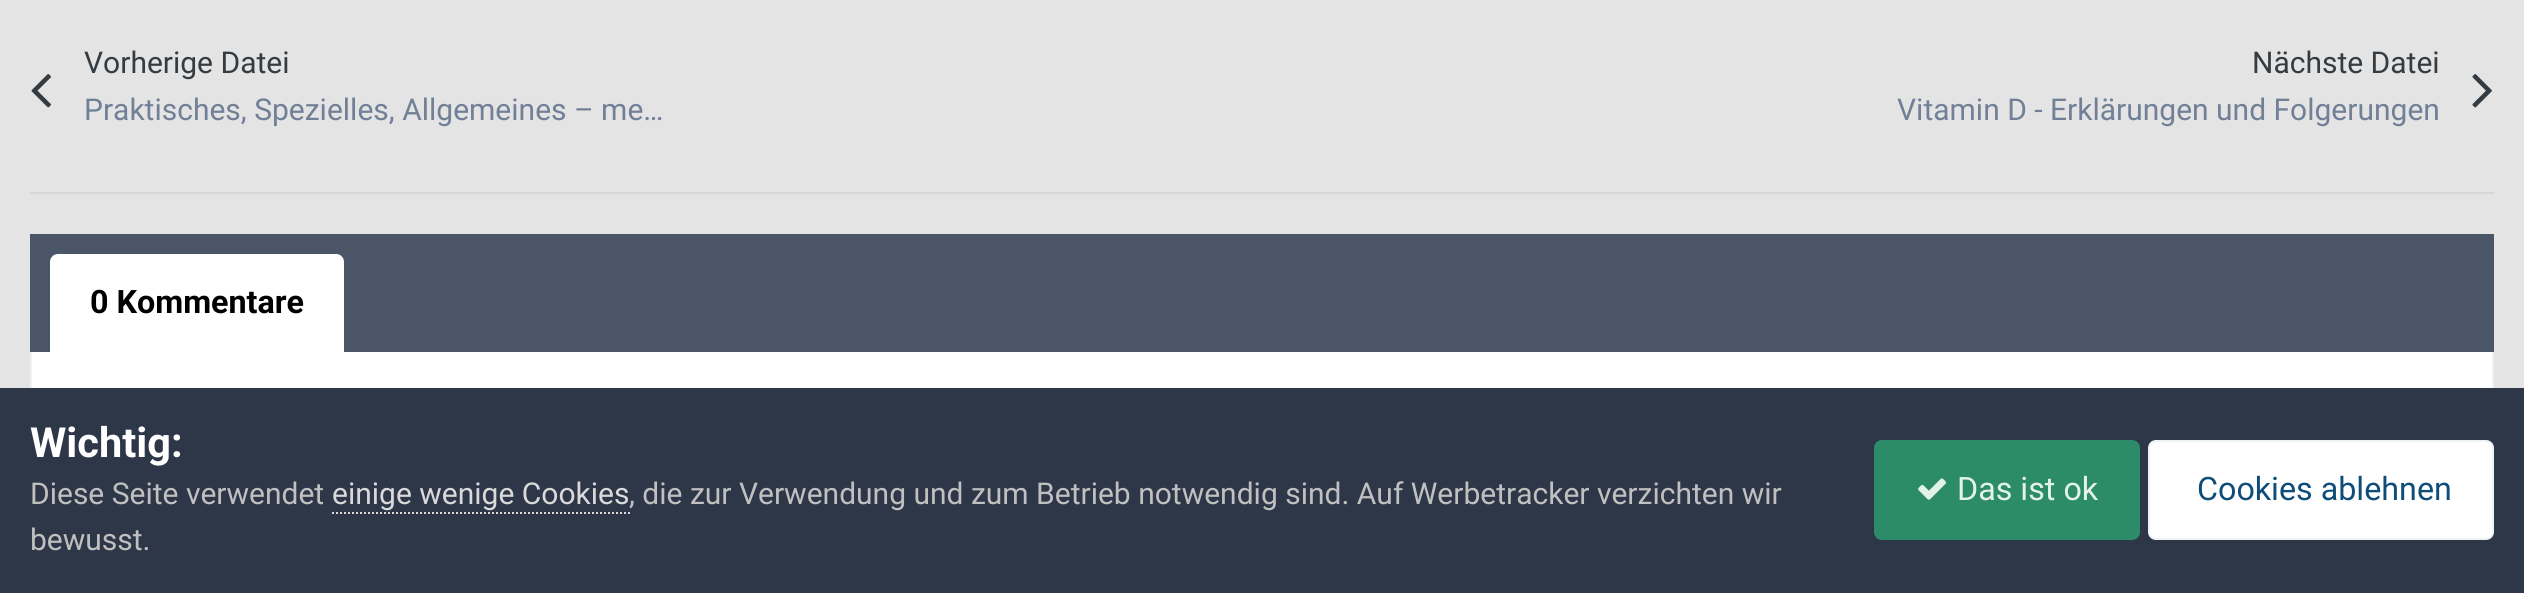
import math
import cairo

surface = cairo.ImageSurface(cairo.Format.RGB24, 2524, 593)
ctx = cairo.Context(surface)
options = cairo.FontOptions()
options.set_hint_metrics(cairo.HintMetrics.OFF)
options.set_hint_style(cairo.HintStyle.NONE)
ctx.set_font_options(options)
ctx.set_miter_limit(4)


def ink(r, g, b):
    ctx.set_source_rgb(r / 255, g / 255, b / 255)


def write(x, y, s, family, size, color, bold=False, italic=False):
    ctx.select_font_face(family, cairo.FontSlant.ITALIC if italic else cairo.FontSlant.NORMAL, cairo.FontWeight.BOLD if bold else cairo.FontWeight.NORMAL)
    ctx.set_font_size(size)
    ink(*color)
    ctx.move_to(x, y)
    ctx.show_text(s)


def block(x, y, w, h, *color):
    ink(*color)
    ctx.rectangle(x, y, w, h)
    ctx.fill()


def round_path(x, y, w, h, r):
    ctx.new_sub_path()
    for i, (u, v) in enumerate([(x + w - r, y + h - r), (x + r, y + h - r), (x + r, y + r), (x + w - r, y + r)]):
        ctx.arc(u, v, r, i * math.pi / 2, (i + 1) * math.pi / 2)
    ctx.close_path()


def paste(path, x, y, w, h):
    ctx.save()
    ctx.set_source_surface(cairo.ImageSurface.create_from_png(path), x, y)
    ctx.rectangle(x, y, w, h)
    ctx.fill()
    ctx.restore()


s1 = dict(family="Roboto", size=30, color=(53, 60, 65))
s2 = dict(family="Roboto", size=30, color=(113, 128, 150))
s3 = dict(family="Roboto", size=32.25, color=(0, 0, 0), bold=True)
s4 = dict(family="Roboto", size=41.5, color=(255, 255, 255), bold=True)
s5 = dict(family="Roboto", size=30, color=(192, 192, 192))
s6 = dict(family="Roboto", size=30, color=(218, 218, 218))
s7 = dict(family="Roboto", size=32.25, color=(227, 243, 236))
s8 = dict(family="Roboto", size=32.25, color=(14, 76, 121))

ink(228, 228, 228)
ctx.paint()
write(84, 73, "Vorherige Datei", **s1)
paste("pic1.png", 31, 74, 20, 34)
write(84, 120, "Praktisches, Spezielles, Allgemeines – me…", **s2)
write(2252, 73, "Nächste Datei", **s1)
paste("pic2.png", 2472, 74, 20, 34)
write(1897, 120, "Vitamin D - Erklärungen und Folgerungen", **s2)
block(30, 192, 2464, 2, 214, 215, 215)
block(30, 234, 2464, 118, 74, 85, 104)
ink(255, 255, 255)
ctx.new_path()
ctx.move_to(58, 254)
ctx.line_to(336, 254)
ctx.curve_to(340.5, 254, 344, 257.5, 344, 262)
ctx.line_to(344, 352)
ctx.line_to(50, 352)
ctx.line_to(50, 262)
ctx.curve_to(50, 257.5, 53.5, 254, 58, 254)
ctx.close_path()
ctx.fill()
write(90, 313, "0 Kommentare", **s3)
block(32, 352, 2460, 36, 255, 255, 255)
block(2492, 352, 2, 36, 237, 242, 247)
block(30, 352, 2, 36, 237, 242, 247)
block(0, 388, 2524, 205, 45, 55, 72)
write(30, 457, "Wichtig:", **s4)
write(30, 504, "Diese Seite verwendet", **s5)
write(332, 504, "einige wenige Cookies", **s6)
ctx.new_path()
ctx.move_to(332, 513)
ctx.line_to(630, 513)
ctx.set_dash([2, 2])
ctx.stroke()
write(629, 504, ", die zur Verwendung und zum Betrieb notwendig sind. Auf Werbetracker verzichten wir", **s5)
write(30, 550, "bewusst.", **s5)
ink(44, 140, 105)
round_path(1874, 440, 266, 100, 8)
ctx.fill()
paste("pic3.png", 1918, 478, 28, 22)
write(1957, 500, "Das ist ok", **s7)
ink(255, 255, 255)
round_path(2148, 440, 346, 100, 8)
ctx.fill()
round_path(2149, 441, 344, 98, 7)
ctx.set_source_rgba(0.055, 0.298, 0.475, 0.07)
ctx.set_dash([])
ctx.stroke()
write(2197, 500, "Cookies ablehnen", **s8)
surface.write_to_png("screenshot.png")
